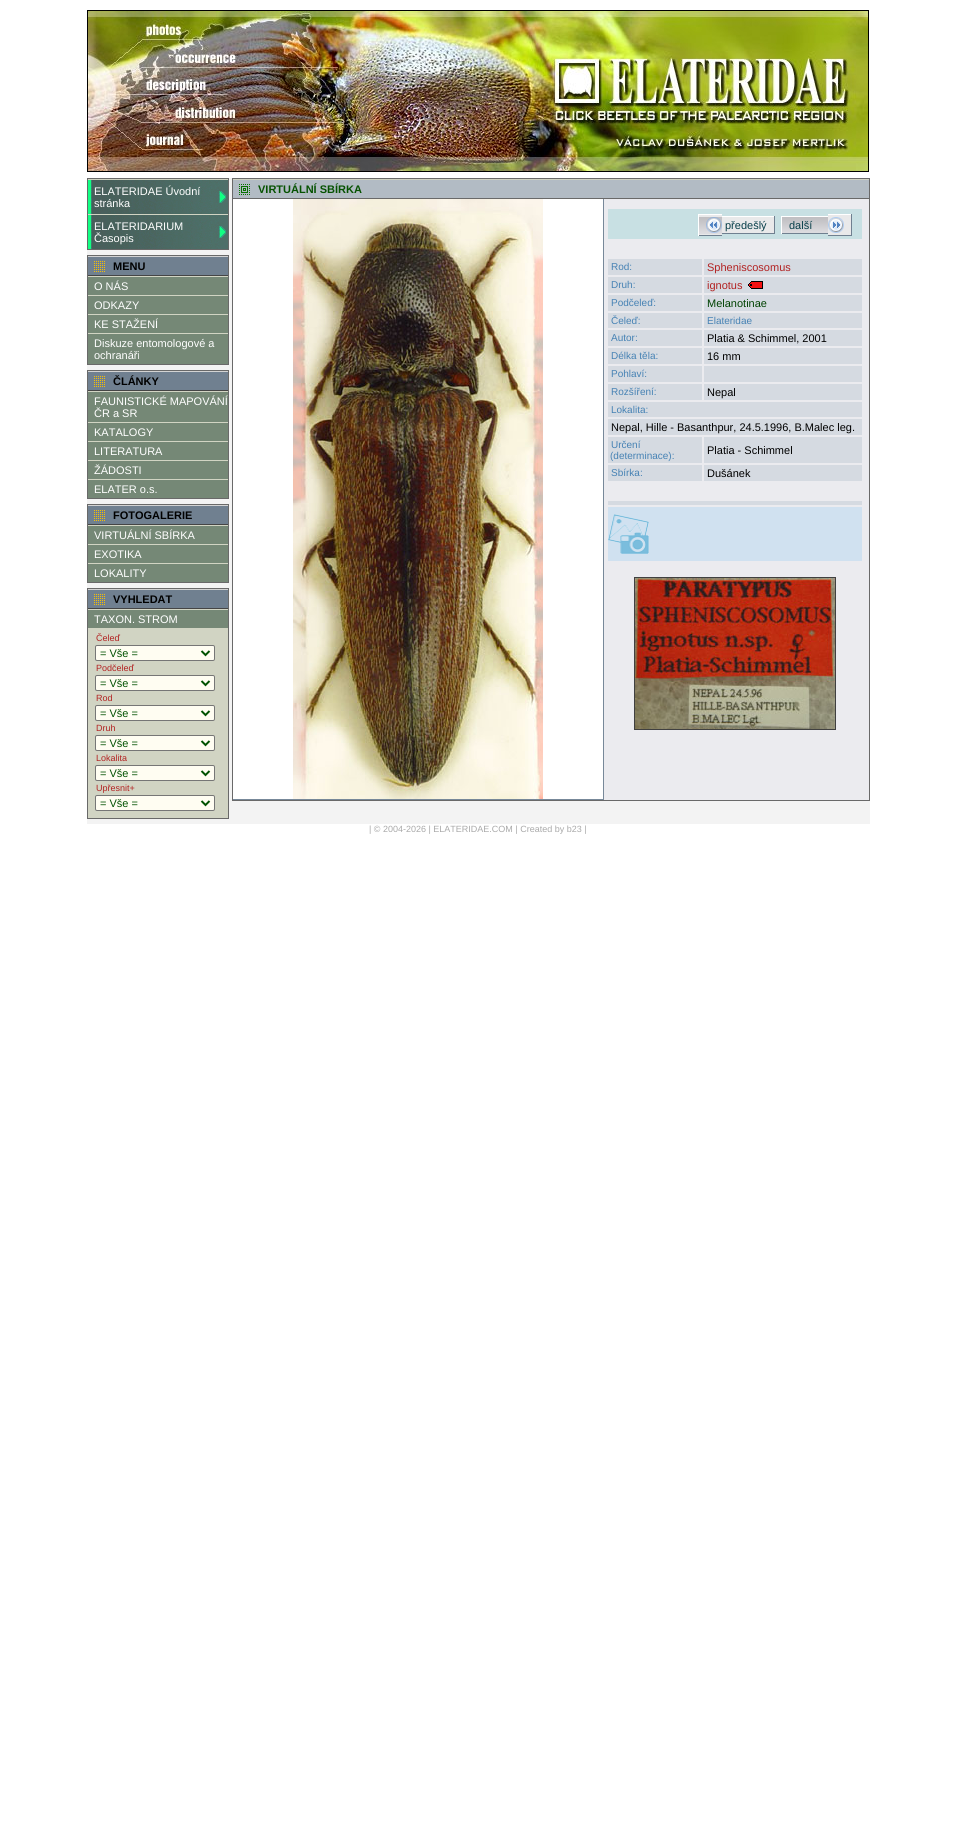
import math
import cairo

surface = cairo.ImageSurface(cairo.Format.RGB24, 956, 1847)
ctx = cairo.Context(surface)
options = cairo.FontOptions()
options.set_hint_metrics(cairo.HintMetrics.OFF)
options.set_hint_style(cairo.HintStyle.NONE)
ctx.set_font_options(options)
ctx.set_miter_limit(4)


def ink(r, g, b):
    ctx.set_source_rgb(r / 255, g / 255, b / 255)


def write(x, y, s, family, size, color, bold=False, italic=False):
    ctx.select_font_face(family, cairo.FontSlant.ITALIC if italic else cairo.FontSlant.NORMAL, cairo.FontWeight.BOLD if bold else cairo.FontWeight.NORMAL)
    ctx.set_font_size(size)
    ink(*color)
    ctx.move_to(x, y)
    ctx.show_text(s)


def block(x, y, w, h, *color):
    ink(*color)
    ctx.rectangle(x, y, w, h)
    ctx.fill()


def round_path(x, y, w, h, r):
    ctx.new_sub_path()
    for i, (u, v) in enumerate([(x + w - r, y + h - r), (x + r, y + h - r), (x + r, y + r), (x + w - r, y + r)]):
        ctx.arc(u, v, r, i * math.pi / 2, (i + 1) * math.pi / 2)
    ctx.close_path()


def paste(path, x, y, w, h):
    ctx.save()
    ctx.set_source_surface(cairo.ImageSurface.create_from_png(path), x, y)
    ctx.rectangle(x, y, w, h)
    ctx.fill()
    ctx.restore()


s1 = dict(family="Liberation Sans", size=11, color=(255, 255, 255))
s2 = dict(family="Liberation Sans", size=11, color=(0, 0, 0), bold=True)
s3 = dict(family="Liberation Sans", size=9, color=(178, 34, 34))
s4 = dict(family="Liberation Sans", size=11, color=(0, 81, 1))
s5 = dict(family="Liberation Sans", size=11, color=(6, 82, 1), bold=True)
s6 = dict(family="Liberation Sans", size=11, color=(7, 62, 73))
s7 = dict(family="Liberation Sans", size=10, color=(70, 130, 180))
s8 = dict(family="Liberation Sans", size=11, color=(178, 34, 34))
s9 = dict(family="Liberation Sans", size=11, color=(0, 66, 1))
s10 = dict(family="Liberation Sans", size=11, color=(0, 0, 0))
s11 = dict(family="Liberation Sans", size=9, color=(169, 169, 169))

ink(255, 255, 255)
ctx.paint()
ctx.rectangle(87.5, 10.5, 781, 161)
ink(0, 0, 0)
ctx.set_line_width(1)
ctx.stroke()
paste("pic1.png", 88, 11, 780, 160)
block(87, 178, 783, 646, 243, 243, 243)
ctx.rectangle(87.5, 178.5, 141, 71)
ink(105, 105, 105)
ctx.stroke()
paste("pic2.png", 88, 180, 140, 34)
block(88, 179, 140, 1, 209, 212, 195)
write(94, 195, "ELATERIDAE Úvodní", **s1)
write(94, 207, "stránka", **s1)
paste("pic2.png", 88, 215, 140, 34)
block(88, 214, 140, 1, 209, 212, 195)
write(94, 230, "ELATERIDARIUM", **s1)
write(94, 242, "Časopis", **s1)
ctx.rectangle(87.5, 255.5, 141, 109)
ink(105, 105, 105)
ctx.stroke()
block(88, 277, 140, 87, 117, 136, 118)
block(88, 257, 140, 18, 112, 128, 144)
paste("pic3.png", 94, 261, 11, 11)
block(88, 256, 140, 1, 211, 211, 211)
block(88, 275, 140, 1, 69, 69, 69)
write(113, 270, "MENU", **s2)
block(88, 276, 140, 1, 209, 212, 195)
write(94, 290, "O NÁS", **s1)
block(88, 295, 140, 1, 209, 212, 195)
write(94, 309, "ODKAZY", **s1)
block(88, 314, 140, 1, 209, 212, 195)
write(94, 328, "KE STAŽENÍ", **s1)
block(88, 333, 140, 1, 209, 212, 195)
write(94, 347, "Diskuze entomologové a", **s1)
write(94, 359, "ochranáři", **s1)
ctx.rectangle(87.5, 370.5, 141, 128)
ink(105, 105, 105)
ctx.stroke()
block(88, 392, 140, 106, 117, 136, 118)
block(88, 372, 140, 18, 112, 128, 144)
paste("pic3.png", 94, 376, 11, 11)
block(88, 371, 140, 1, 211, 211, 211)
block(88, 390, 140, 1, 69, 69, 69)
write(113, 385, "ČLÁNKY", **s2)
block(88, 391, 140, 1, 209, 212, 195)
write(94, 405, "FAUNISTICKÉ MAPOVÁNÍ", **s1)
write(94, 417, "ČR a SR", **s1)
block(88, 422, 140, 1, 209, 212, 195)
write(94, 436, "KATALOGY", **s1)
block(88, 441, 140, 1, 209, 212, 195)
write(94, 455, "LITERATURA", **s1)
block(88, 460, 140, 1, 209, 212, 195)
write(94, 474, "ŽÁDOSTI", **s1)
block(88, 479, 140, 1, 209, 212, 195)
write(94, 493, "ELATER o.s.", **s1)
ctx.rectangle(87.5, 504.5, 141, 78)
ink(105, 105, 105)
ctx.stroke()
block(88, 526, 140, 56, 117, 136, 118)
block(88, 506, 140, 18, 112, 128, 144)
paste("pic3.png", 94, 510, 11, 11)
block(88, 505, 140, 1, 211, 211, 211)
block(88, 524, 140, 1, 69, 69, 69)
write(113, 519, "FOTOGALERIE", **s2)
block(88, 525, 140, 1, 209, 212, 195)
write(94, 539, "VIRTUÁLNÍ SBÍRKA", **s1)
block(88, 544, 140, 1, 209, 212, 195)
write(94, 558, "EXOTIKA", **s1)
block(88, 563, 140, 1, 209, 212, 195)
write(94, 577, "LOKALITY", **s1)
block(88, 628, 140, 190, 209, 212, 195)
ctx.rectangle(87.5, 588.5, 141, 230)
ink(105, 105, 105)
ctx.stroke()
block(88, 590, 140, 18, 112, 128, 144)
paste("pic3.png", 94, 594, 11, 11)
block(88, 589, 140, 1, 211, 211, 211)
block(88, 608, 140, 1, 69, 69, 69)
write(113, 603, "VYHLEDAT", **s2)
block(88, 610, 140, 18, 117, 136, 118)
block(88, 609, 140, 1, 209, 212, 195)
write(94, 623, "TAXON. STROM", **s1)
write(96, 641, "Čeleď", **s3)
ink(255, 253, 242)
round_path(95.5, 645.5, 119, 15, 1.5)
ctx.fill_preserve()
ink(118, 118, 118)
ctx.stroke()
ctx.new_path()
ctx.move_to(201.5, 651)
ctx.line_to(205.5, 655)
ctx.line_to(209.5, 651)
ink(0, 81, 1)
ctx.set_line_width(2)
ctx.stroke()
write(100, 657, "= Vše =", **s4)
write(96, 671, "Podčeleď", **s3)
ink(255, 253, 242)
round_path(95.5, 675.5, 119, 15, 1.5)
ctx.fill_preserve()
ink(118, 118, 118)
ctx.set_line_width(1)
ctx.stroke()
ctx.new_path()
ctx.move_to(201.5, 681)
ctx.line_to(205.5, 685)
ctx.line_to(209.5, 681)
ink(0, 81, 1)
ctx.set_line_width(2)
ctx.stroke()
write(100, 687, "= Vše =", **s4)
write(96, 701, "Rod", **s3)
ink(255, 253, 242)
round_path(95.5, 705.5, 119, 15, 1.5)
ctx.fill_preserve()
ink(118, 118, 118)
ctx.set_line_width(1)
ctx.stroke()
ctx.new_path()
ctx.move_to(201.5, 711)
ctx.line_to(205.5, 715)
ctx.line_to(209.5, 711)
ink(0, 81, 1)
ctx.set_line_width(2)
ctx.stroke()
write(100, 717, "= Vše =", **s4)
write(96, 731, "Druh", **s3)
ink(255, 253, 242)
round_path(95.5, 735.5, 119, 15, 1.5)
ctx.fill_preserve()
ink(118, 118, 118)
ctx.set_line_width(1)
ctx.stroke()
ctx.new_path()
ctx.move_to(201.5, 741)
ctx.line_to(205.5, 745)
ctx.line_to(209.5, 741)
ink(0, 81, 1)
ctx.set_line_width(2)
ctx.stroke()
write(100, 747, "= Vše =", **s4)
write(96, 761, "Lokalita", **s3)
ink(255, 253, 242)
round_path(95.5, 765.5, 119, 15, 1.5)
ctx.fill_preserve()
ink(118, 118, 118)
ctx.set_line_width(1)
ctx.stroke()
ctx.new_path()
ctx.move_to(201.5, 771)
ctx.line_to(205.5, 775)
ctx.line_to(209.5, 771)
ink(0, 81, 1)
ctx.set_line_width(2)
ctx.stroke()
write(100, 777, "= Vše =", **s4)
write(96, 791, "Upřesnit+", **s3)
ink(255, 253, 242)
round_path(95.5, 795.5, 119, 15, 1.5)
ctx.fill_preserve()
ink(118, 118, 118)
ctx.set_line_width(1)
ctx.stroke()
ctx.new_path()
ctx.move_to(201.5, 801)
ctx.line_to(205.5, 805)
ctx.line_to(209.5, 801)
ink(0, 81, 1)
ctx.set_line_width(2)
ctx.stroke()
write(100, 807, "= Vše =", **s4)
block(604, 199, 265, 601, 235, 235, 239)
ctx.rectangle(232.5, 178.5, 637, 622)
ink(105, 105, 105)
ctx.set_line_width(1)
ctx.stroke()
block(233, 180, 636, 18, 178, 187, 196)
paste("pic4.png", 239, 184, 11, 11)
block(233, 179, 636, 1, 209, 212, 195)
block(233, 198, 636, 1, 105, 105, 105)
write(258, 193, "VIRTUÁLNÍ SBÍRKA", **s5)
block(233, 199, 370, 600, 255, 255, 255)
block(603, 199, 1, 601, 119, 136, 153)
block(233, 799, 371, 1, 119, 136, 153)
paste("pic5.png", 293, 199, 250, 600)
block(608, 209, 254, 30, 200, 224, 227)
block(699, 215, 23, 20, 233, 233, 234)
paste("pic6.png", 699, 217, 23, 17)
paste("pic7.png", 706, 217, 16, 16)
block(722, 217, 52, 16, 233, 233, 234)
write(725, 229, "předešlý", **s6)
block(698, 214, 24, 1, 255, 255, 255)
block(698, 235, 24, 1, 112, 128, 144)
block(698, 214, 1, 22, 255, 255, 255)
block(722, 216, 53, 1, 255, 255, 255)
block(774, 216, 1, 18, 112, 128, 144)
block(722, 233, 53, 1, 112, 128, 144)
paste("pic8.png", 782, 217, 46, 16)
block(828, 215, 23, 20, 233, 233, 234)
paste("pic9.png", 828, 217, 16, 16)
write(789, 229, "další", **s6)
block(781, 216, 47, 1, 255, 255, 255)
block(781, 233, 47, 1, 112, 128, 144)
block(781, 216, 1, 18, 255, 255, 255)
block(828, 214, 24, 1, 255, 255, 255)
block(851, 214, 1, 22, 112, 128, 144)
block(828, 235, 24, 1, 112, 128, 144)
block(608, 259, 94, 16, 213, 218, 225)
write(611, 270, "Rod:", **s7)
block(704, 259, 158, 16, 213, 218, 225)
write(707, 271, "Spheniscosomus", **s8)
block(608, 277, 94, 16, 213, 218, 225)
write(611, 288, "Druh:", **s7)
block(704, 277, 158, 16, 213, 218, 225)
write(707, 289, "ignotus", **s8)
paste("pic10.png", 748, 281, 15, 8)
block(608, 295, 94, 16, 213, 218, 225)
write(611, 306, "Podčeleď:", **s7)
block(704, 295, 158, 16, 213, 218, 225)
write(707, 307, "Melanotinae", **s9)
block(608, 313, 94, 15, 213, 218, 225)
write(611, 324, "Čeleď:", **s7)
block(704, 313, 158, 15, 213, 218, 225)
write(707, 324, "Elateridae", **s7)
block(608, 330, 94, 16, 213, 218, 225)
write(611, 341, "Autor:", **s7)
block(704, 330, 158, 16, 213, 218, 225)
write(707, 342, "Platia & Schimmel, 2001", **s10)
block(608, 348, 94, 16, 213, 218, 225)
write(611, 359, "Délka těla:", **s7)
block(704, 348, 158, 16, 213, 218, 225)
write(707, 360, "16 mm", **s10)
block(608, 366, 94, 16, 213, 218, 225)
write(611, 377, "Pohlaví:", **s7)
block(704, 366, 158, 16, 213, 218, 225)
block(608, 384, 94, 16, 213, 218, 225)
write(611, 395, "Rozšíření:", **s7)
block(704, 384, 158, 16, 213, 218, 225)
write(707, 396, "Nepal", **s10)
block(608, 402, 254, 15, 213, 218, 225)
write(611, 413, "Lokalita:", **s7)
block(608, 419, 254, 16, 213, 218, 225)
write(611, 431, "Nepal, Hille - Basanthpur, 24.5.1996, B.Malec leg.", **s10)
block(608, 437, 94, 26, 213, 218, 225)
write(611, 448, "Určení", **s7)
write(610, 459, "(determinace):", **s7)
block(704, 437, 158, 26, 213, 218, 225)
write(707, 454, "Platia - Schimmel", **s10)
block(608, 465, 94, 16, 213, 218, 225)
write(611, 476, "Sbírka:", **s7)
block(704, 465, 158, 16, 213, 218, 225)
write(707, 477, "Dušánek", **s10)
block(608, 501, 254, 4, 213, 218, 225)
block(608, 507, 254, 54, 208, 225, 240)
paste("pic11.png", 608, 514, 41, 40)
ctx.rectangle(634.5, 577.5, 201, 152)
ink(64, 64, 64)
ctx.stroke()
paste("pic12.png", 635, 578, 200, 151)
write(369, 832, "| © 2004-2026 | ELATERIDAE.COM | Created by b23 |", **s11)
surface.write_to_png("screenshot.png")
